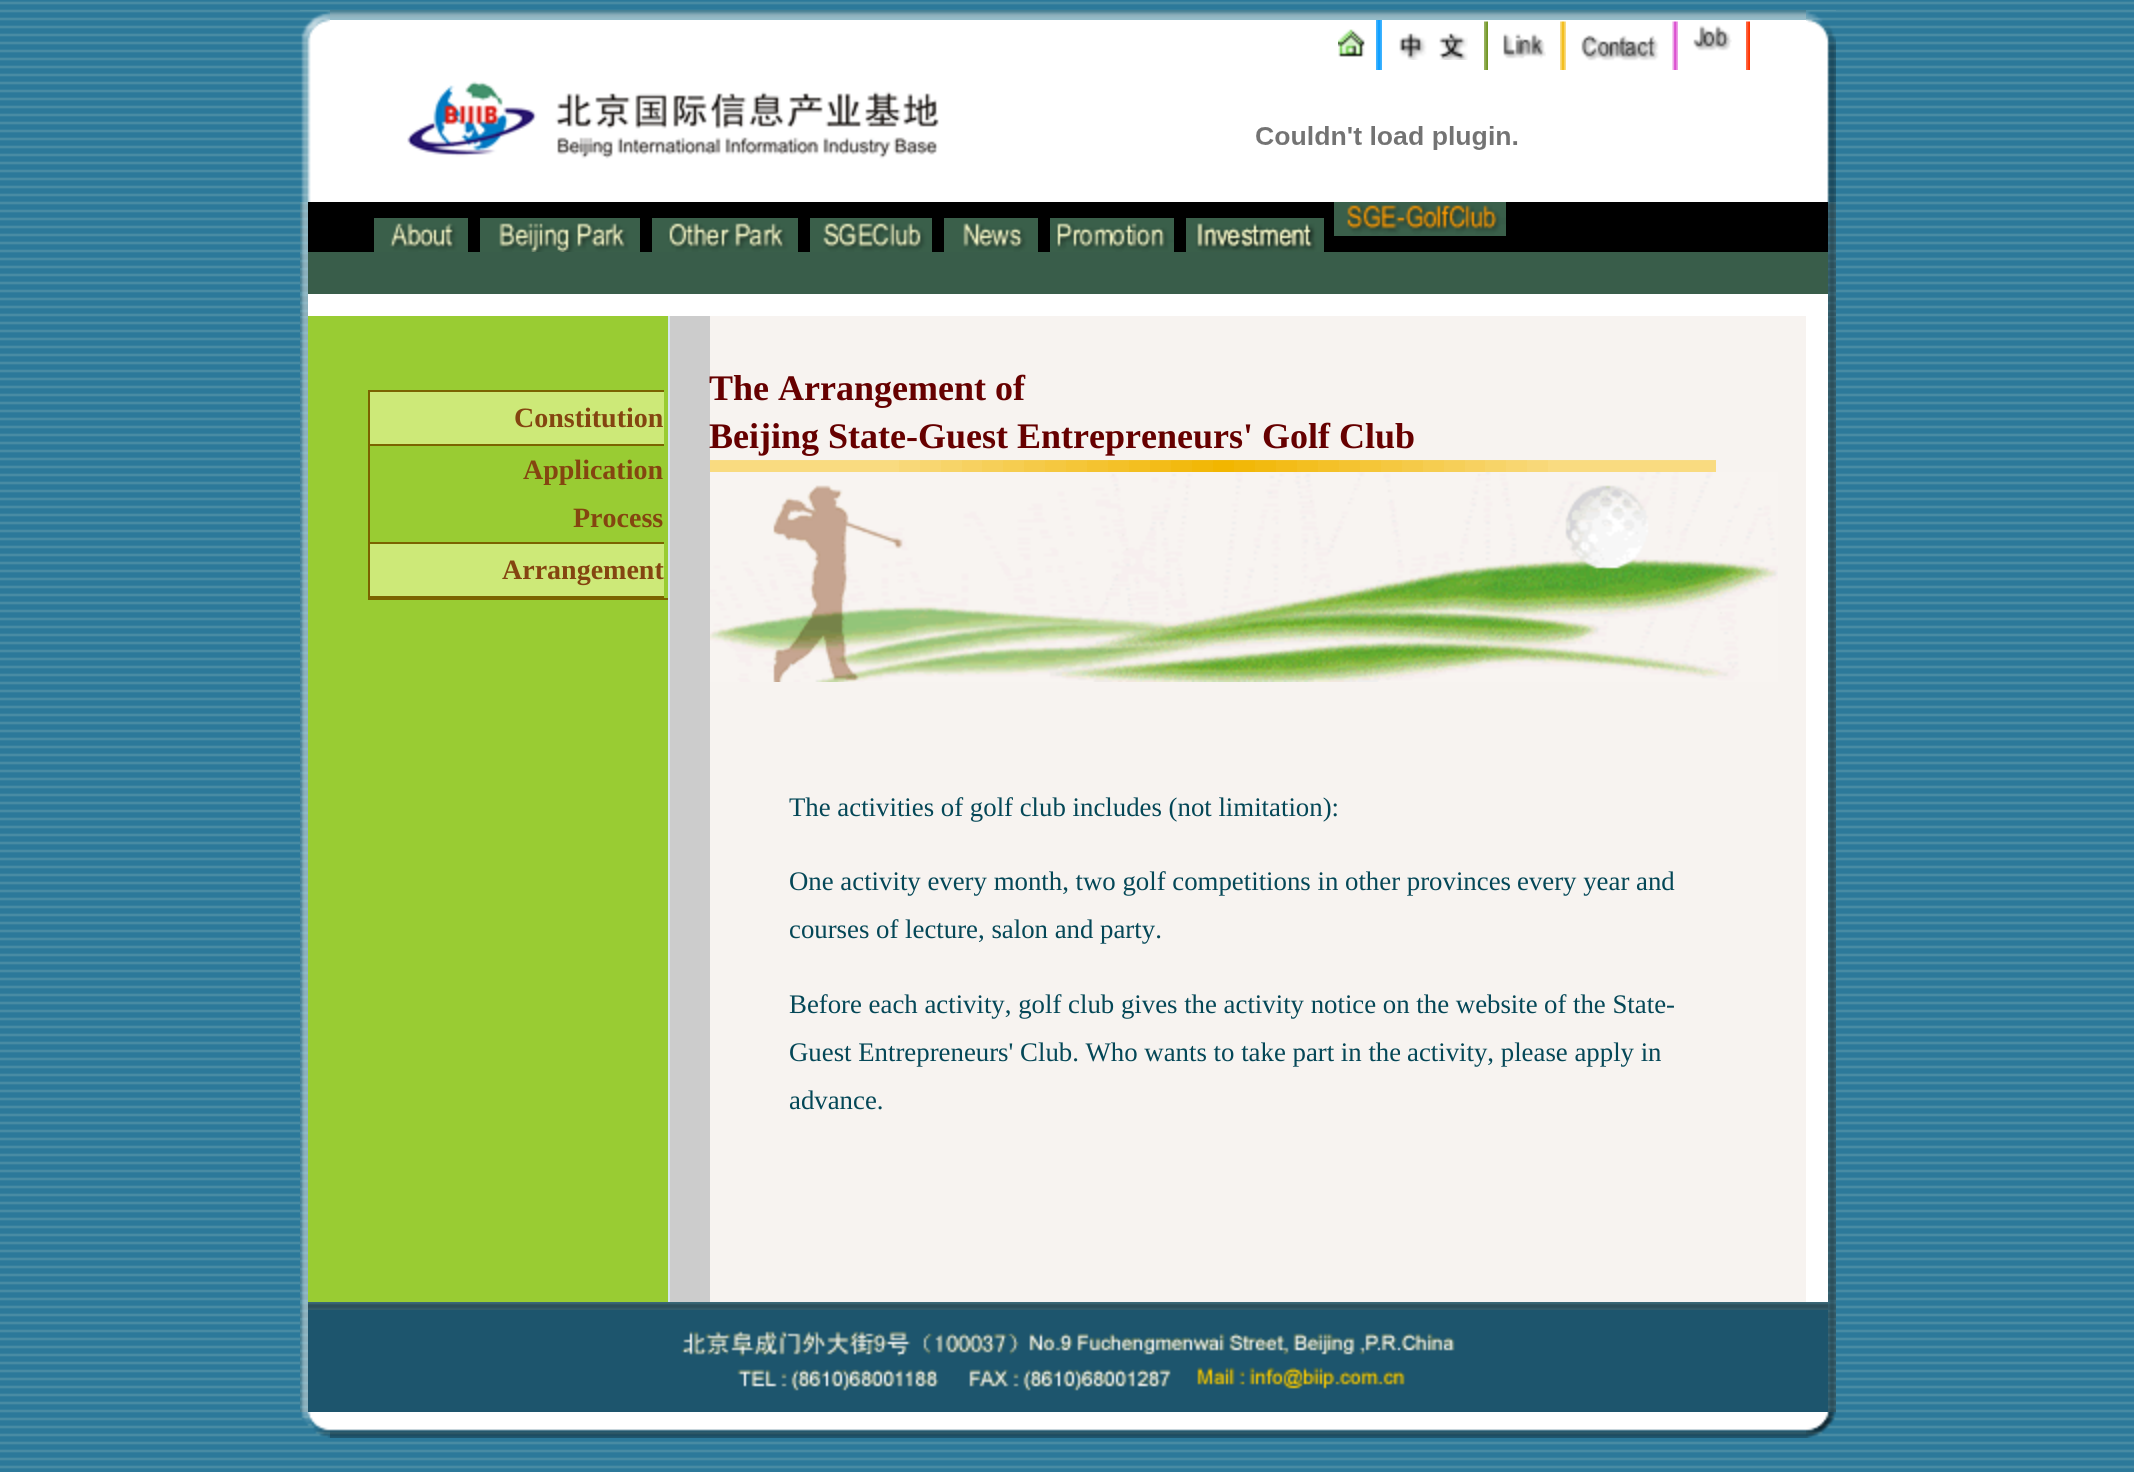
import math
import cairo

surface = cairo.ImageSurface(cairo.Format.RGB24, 2134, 1472)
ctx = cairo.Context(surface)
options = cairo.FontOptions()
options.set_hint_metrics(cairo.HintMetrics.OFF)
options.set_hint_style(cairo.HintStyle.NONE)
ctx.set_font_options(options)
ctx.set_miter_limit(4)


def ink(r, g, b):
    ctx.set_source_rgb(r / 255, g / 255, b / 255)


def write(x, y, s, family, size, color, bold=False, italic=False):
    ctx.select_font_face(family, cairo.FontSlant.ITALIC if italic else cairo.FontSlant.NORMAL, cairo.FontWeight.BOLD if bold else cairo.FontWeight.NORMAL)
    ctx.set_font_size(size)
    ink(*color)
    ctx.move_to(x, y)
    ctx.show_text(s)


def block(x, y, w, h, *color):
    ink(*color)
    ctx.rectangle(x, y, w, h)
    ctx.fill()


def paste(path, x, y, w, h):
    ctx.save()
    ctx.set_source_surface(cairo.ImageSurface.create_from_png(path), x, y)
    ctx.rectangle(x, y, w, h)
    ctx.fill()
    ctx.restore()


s1 = dict(family="Liberation Serif", size=28, color=(132, 69, 16), bold=True)
s2 = dict(family="Liberation Serif", size=36, color=(102, 0, 0), bold=True)
s3 = dict(family="Liberation Serif", size=26.8, color=(4, 71, 87))

ink(255, 255, 255)
ctx.paint()
paste("pic1.png", 0, 0, 2134, 1472)
paste("pic2.png", 300, 10, 30, 192)
paste("pic3.png", 330, 10, 1476, 10)
block(330, 20, 1476, 182, 255, 255, 255)
paste("pic4.png", 1338, 29, 27, 28)
paste("pic5.png", 1376, 20, 6, 50)
paste("pic6.png", 1399, 33, 69, 27)
paste("pic7.png", 1484, 21, 4, 49)
paste("pic8.png", 1503, 33, 43, 26)
paste("pic9.png", 1560, 21, 6, 49)
paste("pic10.png", 1581, 35, 78, 26)
paste("pic11.png", 1672, 21, 6, 49)
paste("pic12.png", 1693, 25, 39, 26)
paste("pic13.png", 1746, 21, 4, 49)
paste("pic14.png", 407, 81, 532, 78)
paste("pic15.png", 1256, 126, 262, 24)
paste("pic16.png", 1806, 10, 30, 192)
paste("pic17.png", 300, 202, 8, 50)
paste("pic18.png", 300, 202, 2, 16)
block(308, 202, 1520, 50, 0, 0, 0)
paste("pic19.png", 374, 218, 94, 34)
paste("pic20.png", 480, 218, 160, 34)
paste("pic21.png", 652, 218, 146, 34)
paste("pic22.png", 810, 218, 122, 34)
paste("pic23.png", 944, 218, 94, 34)
paste("pic24.png", 1050, 218, 124, 34)
paste("pic25.png", 1186, 218, 138, 34)
paste("pic26.png", 1334, 202, 172, 34)
paste("pic27.png", 1828, 218, 8, 34)
paste("pic28.png", 1828, 202, 8, 16)
paste("pic29.png", 300, 252, 8, 42)
paste("pic18.png", 300, 252, 2, 16)
block(308, 252, 1520, 42, 57, 93, 74)
paste("pic30.png", 1828, 268, 8, 26)
paste("pic28.png", 1828, 252, 8, 16)
paste("pic31.png", 300, 294, 8, 22)
paste("pic18.png", 300, 294, 2, 16)
block(308, 294, 1520, 22, 255, 255, 255)
paste("pic32.png", 1828, 310, 8, 6)
paste("pic28.png", 1828, 294, 8, 16)
paste("pic33.png", 300, 316, 8, 986)
paste("pic18.png", 300, 316, 2, 16)
block(308, 316, 360, 986, 153, 204, 51)
block(368, 390, 2, 210, 123, 99, 0)
block(370, 390, 294, 2, 123, 99, 0)
block(370, 392, 294, 52, 205, 233, 120)
write(514, 427, "Constitution", **s1)
block(370, 444, 294, 2, 123, 99, 0)
write(523, 479, "Application", **s1)
write(573, 527, "Process", **s1)
block(370, 542, 294, 2, 123, 99, 0)
block(370, 544, 294, 52, 205, 233, 120)
write(502, 579, "Arrangement", **s1)
block(370, 596, 294, 4, 123, 99, 0)
block(664, 598, 4, 2, 123, 99, 0)
block(668, 316, 2, 986, 214, 231, 239)
block(670, 316, 40, 986, 204, 204, 204)
block(710, 316, 1096, 986, 247, 243, 240)
write(709, 400, "The Arrangement of", **s2)
write(709, 448, "Beijing State-Guest Entrepreneurs' Golf Club", **s2)
paste("pic34.png", 710, 460, 1006, 12)
paste("pic35.png", 710, 472, 1068, 210)
write(789, 816, "The activities of golf club includes (not limitation):", **s3)
write(789, 890, "One activity every month, two golf competitions in other provinces", **s3)
write(1517, 890, "every year and", **s3)
write(789, 938, "courses of lecture, salon and party.", **s3)
write(789, 1013, "Before each activity, golf club gives the activity notice on the website", **s3)
write(1544, 1013, "of the State-", **s3)
write(789, 1061, "Guest Entrepreneurs' Club. Who wants to take part in the", **s3)
write(1407, 1061, "activity, please apply in", **s3)
write(789, 1109, "advance.", **s3)
block(1806, 316, 22, 986, 255, 255, 255)
paste("pic36.png", 1828, 332, 8, 970)
paste("pic28.png", 1828, 316, 8, 16)
paste("pic37.png", 300, 1302, 8, 110)
paste("pic18.png", 300, 1302, 2, 16)
block(308, 1310, 1520, 102, 29, 85, 109)
paste("pic38.png", 308, 1302, 1520, 8)
paste("pic39.png", 681, 1331, 774, 60)
paste("pic40.png", 1828, 1318, 8, 94)
paste("pic28.png", 1828, 1302, 8, 16)
paste("pic41.png", 301, 1412, 29, 26)
paste("pic42.png", 330, 1412, 1476, 26)
paste("pic43.png", 1806, 1412, 30, 26)
surface.write_to_png("screenshot.png")
